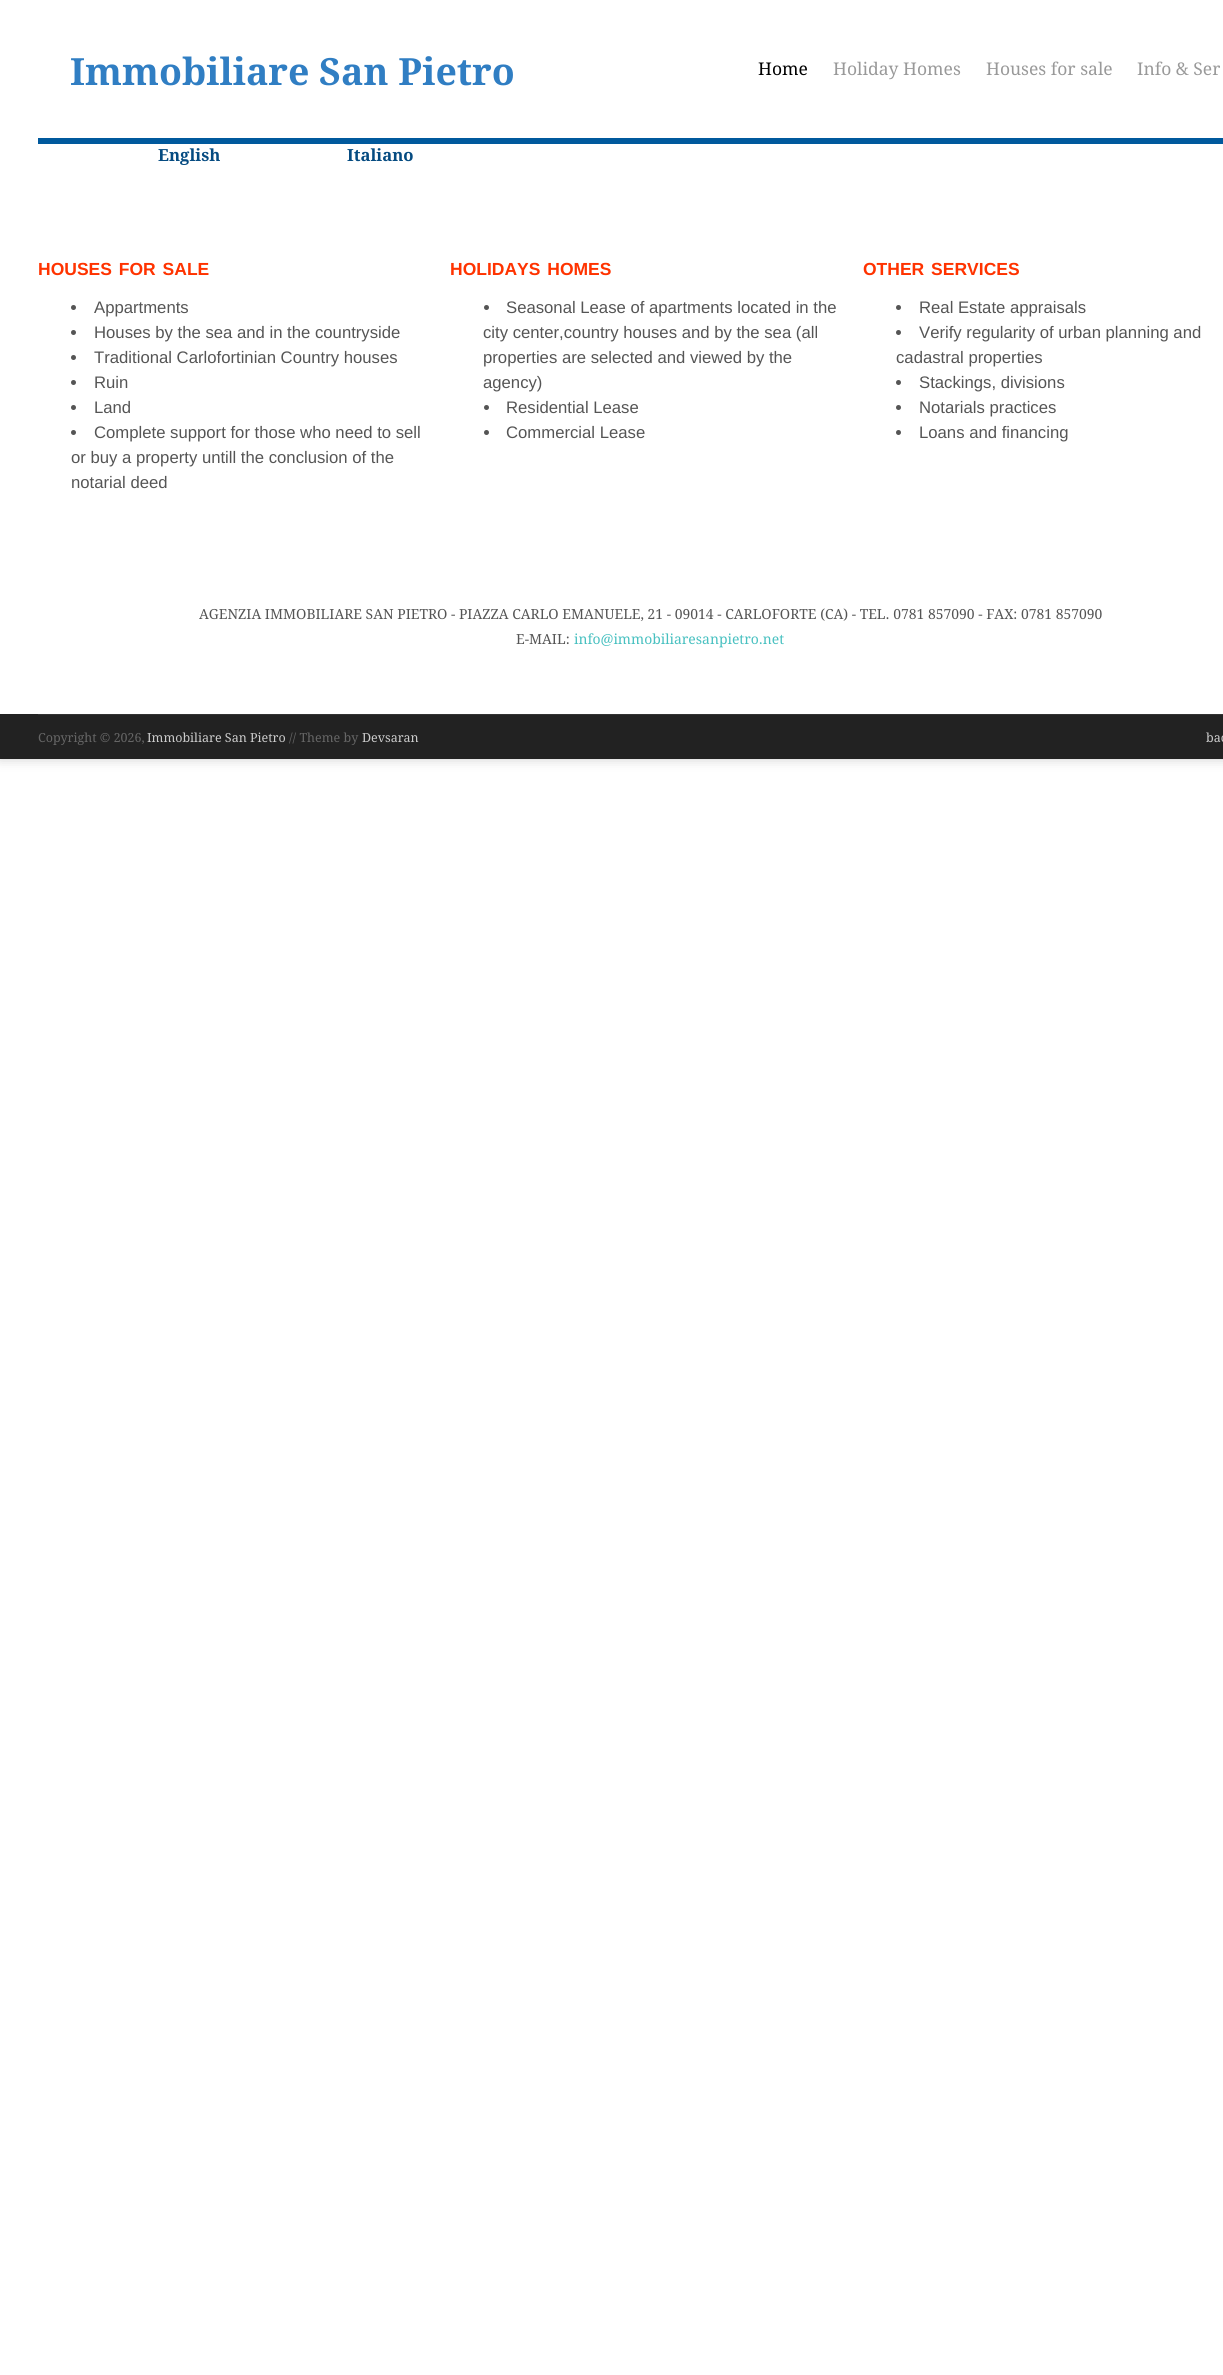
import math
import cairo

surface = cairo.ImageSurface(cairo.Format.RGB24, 1223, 2375)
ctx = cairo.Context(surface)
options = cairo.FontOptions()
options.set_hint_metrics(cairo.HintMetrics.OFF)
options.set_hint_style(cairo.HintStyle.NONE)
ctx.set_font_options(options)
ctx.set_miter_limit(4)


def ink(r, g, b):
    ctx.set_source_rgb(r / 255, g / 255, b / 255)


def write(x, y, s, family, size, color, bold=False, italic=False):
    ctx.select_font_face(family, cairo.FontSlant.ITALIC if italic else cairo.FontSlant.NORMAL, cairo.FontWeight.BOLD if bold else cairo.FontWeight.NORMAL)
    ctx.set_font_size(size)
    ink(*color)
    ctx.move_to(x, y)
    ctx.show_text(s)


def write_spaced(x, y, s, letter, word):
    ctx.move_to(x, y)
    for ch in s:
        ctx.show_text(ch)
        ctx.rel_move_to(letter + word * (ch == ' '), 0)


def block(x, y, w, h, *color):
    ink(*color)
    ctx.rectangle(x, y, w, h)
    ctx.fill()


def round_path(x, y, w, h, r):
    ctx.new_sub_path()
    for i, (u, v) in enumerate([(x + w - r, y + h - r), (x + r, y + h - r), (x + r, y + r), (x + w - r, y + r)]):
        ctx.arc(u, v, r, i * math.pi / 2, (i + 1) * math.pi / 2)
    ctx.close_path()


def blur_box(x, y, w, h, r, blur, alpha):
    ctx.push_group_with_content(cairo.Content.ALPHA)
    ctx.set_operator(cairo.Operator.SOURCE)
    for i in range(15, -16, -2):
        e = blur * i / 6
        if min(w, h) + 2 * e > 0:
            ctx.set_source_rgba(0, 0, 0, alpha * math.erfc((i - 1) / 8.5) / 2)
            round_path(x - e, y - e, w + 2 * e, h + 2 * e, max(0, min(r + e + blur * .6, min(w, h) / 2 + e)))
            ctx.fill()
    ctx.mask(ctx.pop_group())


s1 = dict(family="Droid Serif", size=37.5, color=(48, 126, 195), bold=True)
s2 = dict(family="Droid Serif", size=17.5, color=(0, 0, 0))
s3 = dict(family="Droid Serif", size=17.5, color=(153, 153, 153))
s4 = dict(family="Droid Serif", size=16.7, color=(5, 75, 129), bold=True)
s5 = dict(family="Liberation Sans", size=16.7, color=(85, 85, 85))
s6 = dict(family="Droid Serif", size=13.92, color=(85, 85, 85))
s7 = dict(family="Droid Serif", size=13.92, color=(71, 192, 192))
s8 = dict(family="Droid Serif", size=12.5, color=(102, 102, 102))
s9 = dict(family="Droid Serif", size=12.5, color=(204, 204, 204))

ink(255, 255, 255)
ctx.paint()
ink(0, 0, 0)
blur_box(0, 0, 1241, 759, 0, 6, 0.2)
block(0, 0, 1223, 714, 255, 255, 255)
block(38, 138, 1185, 6, 0, 89, 157)
write(70, 85, "Immobiliare San Pietro", **s1)
write(758, 75, "Home", **s2)
write(833, 75, "Holiday Homes", **s3)
write(986, 75, "Houses for sale", **s3)
write(1137, 75, "Info & Ser", **s3)
write(158, 161, "English", **s4)
write(347, 161, "Italiano", **s4)
ctx.select_font_face("Liberation Sans", cairo.FontSlant.NORMAL, cairo.FontWeight.BOLD)
ctx.set_font_size(17.5)
ink(255, 51, 0)
write_spaced(38, 275, "HOUSES FOR SALE", 0, 2)
ink(85, 85, 85)
ctx.new_path()
ctx.arc(73.5, 307.5, 2.5, 0, 2 * math.pi)
ctx.fill()
write(94, 313, "Appartments", **s5)
ctx.new_path()
ctx.arc(73.5, 332.5, 2.5, 0, 2 * math.pi)
ctx.fill()
write(94, 338, "Houses by the sea and in the countryside", **s5)
ctx.new_path()
ctx.arc(73.5, 357.5, 2.5, 0, 2 * math.pi)
ctx.fill()
write(94, 363, "Traditional Carlofortinian Country houses", **s5)
ctx.new_path()
ctx.arc(73.5, 382.5, 2.5, 0, 2 * math.pi)
ctx.fill()
write(94, 388, "Ruin", **s5)
ctx.new_path()
ctx.arc(73.5, 407.5, 2.5, 0, 2 * math.pi)
ctx.fill()
write(94, 413, "Land", **s5)
ctx.new_path()
ctx.arc(73.5, 432.5, 2.5, 0, 2 * math.pi)
ctx.fill()
write(94, 438, "Complete support for those who need to sell", **s5)
write(71, 463, "or buy a property untill the conclusion of the", **s5)
write(71, 488, "notarial deed", **s5)
ctx.select_font_face("Liberation Sans", cairo.FontSlant.NORMAL, cairo.FontWeight.BOLD)
ctx.set_font_size(17.5)
ink(255, 51, 0)
write_spaced(450, 275, "HOLIDAYS HOMES", 0, 2)
ink(85, 85, 85)
ctx.new_path()
ctx.arc(486.5, 307.5, 2.5, 0, 2 * math.pi)
ctx.fill()
write(506, 313, "Seasonal Lease of apartments located in the", **s5)
write(483, 338, "city center,country houses and by the sea (all", **s5)
write(483, 363, "properties are selected and viewed by the", **s5)
write(483, 388, "agency)", **s5)
ctx.new_path()
ctx.arc(486.5, 407.5, 2.5, 0, 2 * math.pi)
ctx.fill()
write(506, 413, "Residential Lease", **s5)
ctx.new_path()
ctx.arc(486.5, 432.5, 2.5, 0, 2 * math.pi)
ctx.fill()
write(506, 438, "Commercial Lease", **s5)
ctx.select_font_face("Liberation Sans", cairo.FontSlant.NORMAL, cairo.FontWeight.BOLD)
ctx.set_font_size(17.5)
ink(255, 51, 0)
write_spaced(863, 275, "OTHER SERVICES", 0, 2)
ink(85, 85, 85)
ctx.new_path()
ctx.arc(898.5, 307.5, 2.5, 0, 2 * math.pi)
ctx.fill()
write(919, 313, "Real Estate appraisals", **s5)
ctx.new_path()
ctx.arc(898.5, 332.5, 2.5, 0, 2 * math.pi)
ctx.fill()
write(919, 338, "Verify regularity of urban planning and", **s5)
write(896, 363, "cadastral properties", **s5)
ctx.new_path()
ctx.arc(898.5, 382.5, 2.5, 0, 2 * math.pi)
ctx.fill()
write(919, 388, "Stackings, divisions", **s5)
ctx.new_path()
ctx.arc(898.5, 407.5, 2.5, 0, 2 * math.pi)
ctx.fill()
write(919, 413, "Notarials practices", **s5)
ctx.new_path()
ctx.arc(898.5, 432.5, 2.5, 0, 2 * math.pi)
ctx.fill()
write(919, 438, "Loans and financing", **s5)
write(199, 619, "AGENZIA IMMOBILIARE SAN PIETRO - PIAZZA CARLO EMANUELE, 21 - 09014 - CARLOFORTE (CA) - TEL. 0781 857090 - FAX: 0781 857090", **s6)
write(516, 644, "E-MAIL:", **s6)
write(574, 644, "info@immobiliaresanpietro.net", **s7)
block(0, 714, 1223, 45, 34, 34, 34)
block(38, 714, 1185, 1, 51, 51, 51)
write(38, 742, "Copyright © 2026,", **s8)
write(147, 742, "Immobiliare San Pietro", **s9)
write(289, 742, "// Theme by", **s8)
write(362, 742, "Devsaran", **s9)
write(1206, 742, "bac", **s9)
surface.write_to_png("screenshot.png")
